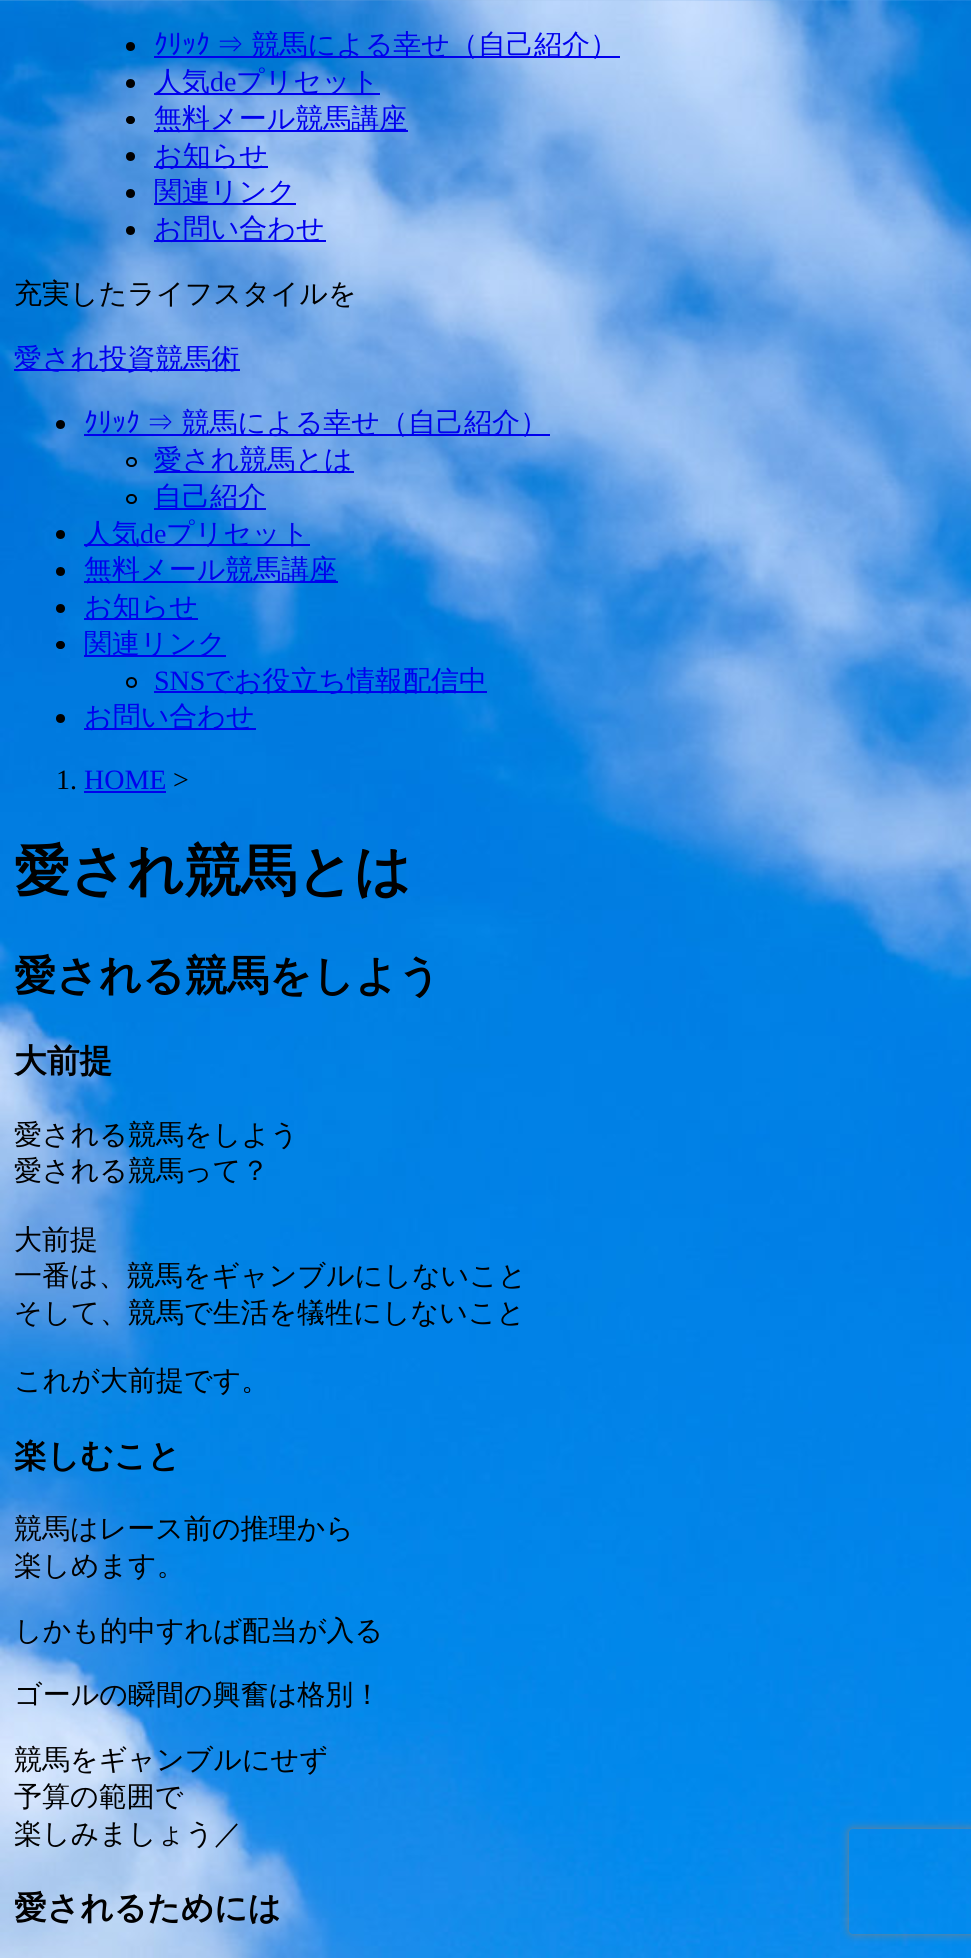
import math
import cairo

surface = cairo.ImageSurface(cairo.Format.RGB24, 971, 1958)
ctx = cairo.Context(surface)
options = cairo.FontOptions()
options.set_hint_metrics(cairo.HintMetrics.OFF)
options.set_hint_style(cairo.HintStyle.NONE)
ctx.set_font_options(options)
ctx.set_miter_limit(4)


def ink(r, g, b):
    ctx.set_source_rgb(r / 255, g / 255, b / 255)


def write(x, y, s, family, size, color, bold=False, italic=False):
    ctx.select_font_face(family, cairo.FontSlant.ITALIC if italic else cairo.FontSlant.NORMAL, cairo.FontWeight.BOLD if bold else cairo.FontWeight.NORMAL)
    ctx.set_font_size(size)
    ink(*color)
    ctx.move_to(x, y)
    ctx.show_text(s)


def write_spaced(x, y, s, letter, word):
    ctx.move_to(x, y)
    for ch in s:
        ctx.show_text(ch)
        ctx.rel_move_to(letter + word * (ch == ' '), 0)


def block(x, y, w, h, *color):
    ink(*color)
    ctx.rectangle(x, y, w, h)
    ctx.fill()


def round_path(x, y, w, h, r):
    ctx.new_sub_path()
    for i, (u, v) in enumerate([(x + w - r, y + h - r), (x + r, y + h - r), (x + r, y + r), (x + w - r, y + r)]):
        ctx.arc(u, v, r, i * math.pi / 2, (i + 1) * math.pi / 2)
    ctx.close_path()


def blur_box(x, y, w, h, r, blur, alpha):
    ctx.push_group_with_content(cairo.Content.ALPHA)
    ctx.set_operator(cairo.Operator.SOURCE)
    for i in range(15, -16, -2):
        e = blur * i / 6
        if min(w, h) + 2 * e > 0:
            ctx.set_source_rgba(0, 0, 0, alpha * math.erfc((i - 1) / 8.5) / 2)
            round_path(x - e, y - e, w + 2 * e, h + 2 * e, max(0, min(r + e + blur * .6, min(w, h) / 2 + e)))
            ctx.fill()
    ctx.mask(ctx.pop_group())


def paste(path, x, y, w, h):
    ctx.save()
    ctx.set_source_surface(cairo.ImageSurface.create_from_png(path), x, y)
    ctx.rectangle(x, y, w, h)
    ctx.fill()
    ctx.restore()


s1 = dict(family="IPAPGothic", size=28, color=(0, 0, 238))
s2 = dict(family="WenQuanYi Zen Hei Medium", size=28, color=(0, 0, 238))
s3 = dict(family="Liberation Serif", size=28, color=(0, 0, 238))
s4 = dict(family="WenQuanYi Zen Hei Medium", size=28, color=(0, 0, 0))
s5 = dict(family="Liberation Serif", size=28, color=(0, 0, 0))
s6 = dict(family="WenQuanYi Zen Hei", size=56, color=(0, 0, 0), bold=True)
s7 = dict(family="WenQuanYi Zen Hei", size=42, color=(0, 0, 0), bold=True)
s8 = dict(family="WenQuanYi Zen Hei", size=32.75, color=(0, 0, 0), bold=True)

ink(255, 255, 255)
ctx.paint()
paste("pic1.png", 0, 0, 971, 1958)
ink(0, 0, 0)
ctx.arc(130.5, 46.5, 4.5, 0, 2 * math.pi)
ctx.fill()
write(154, 54, "ｸﾘｯｸ", **s1)
block(154, 56, 466, 2, 0, 0, 238)
ctx.select_font_face("WenQuanYi Zen Hei Medium")
write_spaced(216, 54, "⇒ 競馬による幸せ（自己紹介）", 0, -1)
ink(0, 0, 0)
ctx.new_path()
ctx.arc(130.5, 83.5, 4.5, 0, 2 * math.pi)
ctx.fill()
block(154, 93, 226, 2, 0, 0, 238)
write(154, 91, "人気", **s2)
write(210, 91, "de", **s3)
write(236, 91, "プリセット", **s2)
ink(0, 0, 0)
round_path(126, 116, 9, 8, 4)
ctx.fill()
block(154, 130, 254, 2, 0, 0, 238)
write(154, 128, "無料メール競馬講座", **s2)
ink(0, 0, 0)
ctx.new_path()
ctx.arc(130.5, 156.5, 4.5, 0, 2 * math.pi)
ctx.fill()
block(154, 166, 114, 2, 0, 0, 238)
write(154, 165, "お知らせ", **s2)
ink(0, 0, 0)
ctx.new_path()
ctx.arc(130.5, 193.5, 4.5, 0, 2 * math.pi)
ctx.fill()
block(154, 203, 142, 2, 0, 0, 238)
write(154, 201, "関連リンク", **s2)
ink(0, 0, 0)
ctx.new_path()
ctx.arc(130.5, 230.5, 4.5, 0, 2 * math.pi)
ctx.fill()
block(154, 240, 172, 2, 0, 0, 238)
write(154, 238, "お問い合わせ", **s2)
write(14, 303, "充実したライフスタイルを", **s4)
block(14, 369, 226, 2, 0, 0, 238)
write(14, 368, "愛され投資競馬術", **s2)
ink(0, 0, 0)
ctx.new_path()
ctx.arc(60.5, 424.5, 4.5, 0, 2 * math.pi)
ctx.fill()
write(84, 432, "ｸﾘｯｸ", **s1)
block(84, 434, 466, 2, 0, 0, 238)
ctx.select_font_face("WenQuanYi Zen Hei Medium")
write_spaced(146, 432, "⇒ 競馬による幸せ（自己紹介）", 0, -1)
round_path(127, 458, 9, 8, 4)
ink(0, 0, 0)
ctx.stroke()
block(154, 471, 200, 2, 0, 0, 238)
write(154, 469, "愛され競馬とは", **s2)
round_path(127, 495, 9, 8, 4)
ink(0, 0, 0)
ctx.stroke()
block(154, 508, 112, 2, 0, 0, 238)
write(154, 506, "自己紹介", **s2)
ink(0, 0, 0)
ctx.new_path()
ctx.arc(60.5, 534.5, 4.5, 0, 2 * math.pi)
ctx.fill()
block(84, 544, 226, 2, 0, 0, 238)
write(84, 543, "人気", **s2)
write(140, 543, "de", **s3)
write(166, 543, "プリセット", **s2)
ink(0, 0, 0)
ctx.new_path()
ctx.arc(60.5, 571.5, 4.5, 0, 2 * math.pi)
ctx.fill()
block(84, 581, 254, 2, 0, 0, 238)
write(84, 579, "無料メール競馬講座", **s2)
ink(0, 0, 0)
ctx.new_path()
ctx.arc(60.5, 608.5, 4.5, 0, 2 * math.pi)
ctx.fill()
block(84, 618, 114, 2, 0, 0, 238)
write(84, 616, "お知らせ", **s2)
ink(0, 0, 0)
round_path(56, 641, 9, 8, 4)
ctx.fill()
block(84, 655, 142, 2, 0, 0, 238)
write(84, 653, "関連リンク", **s2)
ctx.new_path()
ctx.arc(131.5, 682.5, 4.5, 0, 2 * math.pi)
ink(0, 0, 0)
ctx.stroke()
write(154, 690, "SNS", **s3)
block(154, 691, 333, 2, 0, 0, 238)
write(205, 690, "でお役立ち情報配信中", **s2)
ink(0, 0, 0)
ctx.new_path()
ctx.arc(60.5, 718.5, 4.5, 0, 2 * math.pi)
ctx.fill()
block(84, 728, 172, 2, 0, 0, 238)
write(84, 726, "お問い合わせ", **s2)
write(56, 789, "1.", **s5)
write(84, 789, "HOME", **s3)
block(84, 791, 82, 2, 0, 0, 238)
write(173, 789, ">", **s5)
write(14, 890, "愛され競馬とは", **s6)
write(14, 990, "愛される競馬をしよう", **s7)
write(14, 1072, "大前提", **s8)
write(14, 1144, "愛される競馬をしよう", **s4)
write(14, 1180, "愛される競馬って？", **s4)
write(14, 1249, "大前提", **s4)
write(14, 1285, "一番は、競馬をギャンブルにしないこと", **s4)
write(14, 1322, "そして、競馬で生活を犠牲にしないこと", **s4)
write(14, 1390, "これが大前提です。", **s4)
write(14, 1467, "楽しむこと", **s8)
write(14, 1538, "競馬はレース前の推理から", **s4)
write(14, 1575, "楽しめます。", **s4)
write(14, 1640, "しかも的中すれば配当が入る", **s4)
write(14, 1704, "ゴールの瞬間の興奮は格別！", **s4)
write(14, 1769, "競馬をギャンブルにせず", **s4)
write(14, 1806, "予算の範囲で", **s4)
write(14, 1843, "楽しみましょう／", **s4)
write(14, 1919, "愛されるためには", **s8)
ctx.save()
ctx.set_fill_rule(cairo.FillRule.EVEN_ODD)
ctx.new_path()
ctx.move_to(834, 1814)
ctx.line_to(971, 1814)
ctx.line_to(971, 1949)
ctx.line_to(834, 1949)
ctx.close_path()
ctx.move_to(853, 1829)
ctx.line_to(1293, 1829)
ctx.curve_to(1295, 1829, 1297, 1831, 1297, 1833)
ctx.line_to(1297, 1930)
ctx.curve_to(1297, 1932, 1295, 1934, 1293, 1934)
ctx.line_to(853, 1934)
ctx.curve_to(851, 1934, 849, 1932, 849, 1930)
ctx.line_to(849, 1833)
ctx.curve_to(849, 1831, 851, 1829, 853, 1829)
ctx.close_path()
ctx.clip()
ink(128, 128, 128)
blur_box(849, 1829, 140, 105, 4, 4.5, 1)
ctx.restore()
surface.write_to_png("screenshot.png")
